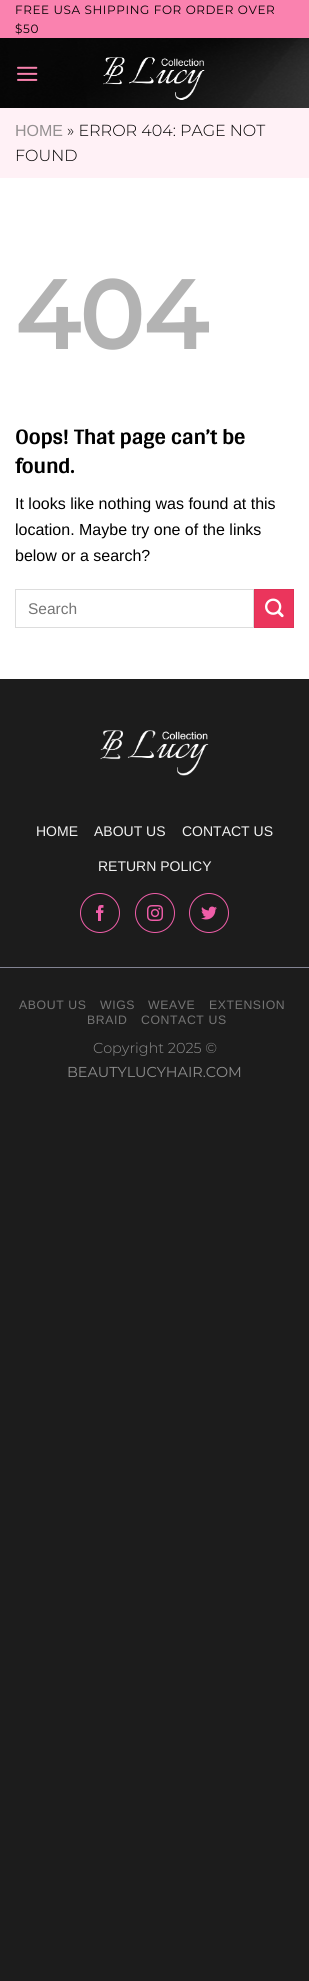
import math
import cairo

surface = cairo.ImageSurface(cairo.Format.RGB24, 309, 1981)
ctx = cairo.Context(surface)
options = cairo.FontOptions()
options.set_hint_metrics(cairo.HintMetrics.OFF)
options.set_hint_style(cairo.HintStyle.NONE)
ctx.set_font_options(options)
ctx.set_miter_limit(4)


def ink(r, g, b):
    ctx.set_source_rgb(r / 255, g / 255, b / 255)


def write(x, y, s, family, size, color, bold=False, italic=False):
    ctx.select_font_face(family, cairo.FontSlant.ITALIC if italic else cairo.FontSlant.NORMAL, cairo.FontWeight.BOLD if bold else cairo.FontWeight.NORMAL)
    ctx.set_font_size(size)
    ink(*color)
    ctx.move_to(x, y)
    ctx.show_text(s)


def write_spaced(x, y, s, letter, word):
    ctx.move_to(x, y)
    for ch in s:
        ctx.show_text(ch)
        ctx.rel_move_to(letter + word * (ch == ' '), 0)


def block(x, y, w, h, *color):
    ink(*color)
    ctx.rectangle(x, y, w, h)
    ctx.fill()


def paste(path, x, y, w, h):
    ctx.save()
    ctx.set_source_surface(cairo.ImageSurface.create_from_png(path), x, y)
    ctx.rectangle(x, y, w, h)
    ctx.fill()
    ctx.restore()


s1 = dict(family="Liberation Sans", size=16, color=(148, 144, 145))
s2 = dict(family="Montserrat Light", size=16, color=(0, 0, 0))
s3 = dict(family="Montserrat", size=96, color=(179, 179, 179), bold=True)
s4 = dict(family="Arya", size=22.4, color=(0, 0, 0), bold=True)
s5 = dict(family="Liberation Sans", size=16, color=(0, 0, 0))
s6 = dict(family="Liberation Sans", size=15.5, color=(117, 117, 117))
s7 = dict(family="Liberation Sans", size=14, color=(241, 241, 241))
s8 = dict(family="Montserrat Light", size=14.4, color=(142, 142, 142))
s9 = dict(family="Montserrat", size=14.4, color=(142, 142, 142))

ink(28, 28, 28)
ctx.paint()
block(0, 178, 309, 501, 255, 255, 255)
block(0, 0, 309, 38, 250, 130, 175)
ctx.select_font_face("Montserrat")
ctx.set_font_size(12)
ink(0, 0, 0)
write_spaced(15, 14, "FREE USA SHIPPING FOR ORDER OVER", 0.6, 0)
write_spaced(15, 33, "$50", 0.6, 0)
paste("pic1.png", 0, 38, 309, 70)
paste("pic2.png", 17, 66, 21, 15)
paste("pic3.png", 103, 57, 102, 43)
block(0, 108, 309, 70, 255, 241, 246)
write(15, 136, "HOME", **s1)
write(67, 136, "» ERROR 404: PAGE NOT", **s2)
write(15, 161, "FOUND", **s2)
write(15, 349, "404", **s3)
write(15, 444, "Oops! That page can’t be", **s4)
write(15, 473, "found.", **s4)
write(15, 509, "It looks like nothing was found at this", **s5)
write(15, 535, "location. Maybe try one of the links", **s5)
write(15, 561, "below or a search?", **s5)
ctx.rectangle(15.5, 589.5, 238, 38)
ink(221, 221, 221)
ctx.set_line_width(1)
ctx.stroke()
write(28, 614, "Search", **s6)
ink(235, 53, 92)
ctx.rectangle(254.5, 589.5, 39, 38)
ctx.fill_preserve()
ink(223, 50, 87)
ctx.stroke()
paste("pic4.png", 265, 598, 19, 20)
paste("pic5.png", 100, 730, 109, 46)
write(36, 836, "HOME", **s7)
write(94, 836, "ABOUT US", **s7)
write(182, 836, "CONTACT US", **s7)
write(98, 871, "RETURN POLICY", **s7)
ctx.new_path()
ctx.arc(100, 913, 19.5, 0, 2 * math.pi)
ink(239, 93, 168)
ctx.stroke()
paste("pic6.png", 96, 905, 8, 16)
ctx.arc(155, 913, 19.5, 0, 2 * math.pi)
ctx.stroke()
paste("pic7.png", 147, 905, 16, 16)
ctx.arc(209, 913, 19.5, 0, 2 * math.pi)
ctx.stroke()
paste("pic8.png", 201, 906, 16, 14)
block(0, 967, 309, 1, 130, 131, 146)
ctx.set_font_size(12.25)
ink(117, 117, 117)
write_spaced(19, 1009, "ABOUT US", 0.6, 0)
write_spaced(100, 1009, "WIGS", 0.6, 0)
write_spaced(148, 1009, "WEAVE", 0.6, 0)
write_spaced(209, 1009, "EXTENSION", 0.6, 0)
write_spaced(87, 1024, "BRAID", 0.6, 0)
write_spaced(141, 1024, "CONTACT US", 0.6, 0)
write(93, 1053, "Copyright 2025 ©", **s8)
write(67, 1077, "BEAUTYLUCYHAIR.COM", **s9)
surface.write_to_png("screenshot.png")
